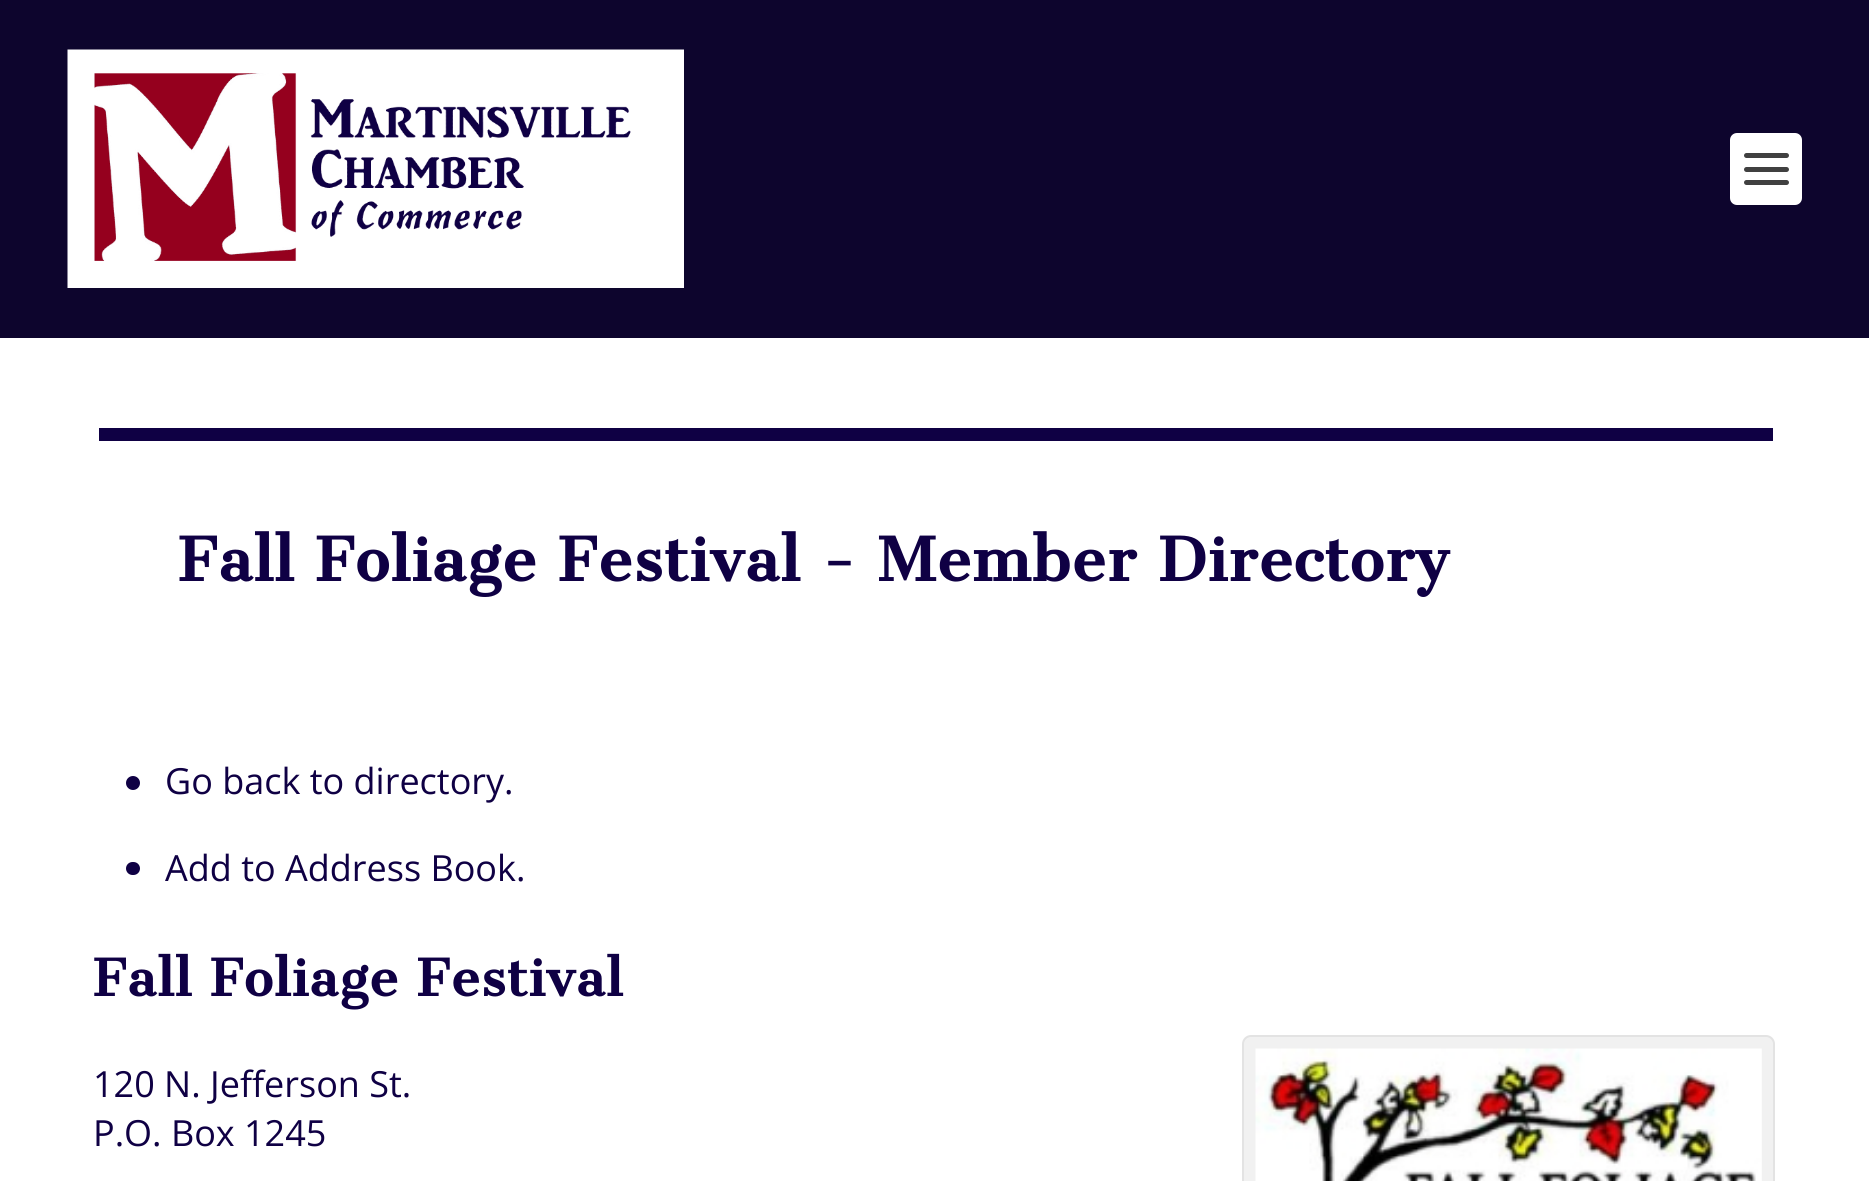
import math
import cairo

surface = cairo.ImageSurface(cairo.Format.RGB24, 1869, 1181)
ctx = cairo.Context(surface)
options = cairo.FontOptions()
options.set_hint_metrics(cairo.HintMetrics.OFF)
options.set_hint_style(cairo.HintStyle.NONE)
ctx.set_font_options(options)
ctx.set_miter_limit(4)


def ink(r, g, b):
    ctx.set_source_rgb(r / 255, g / 255, b / 255)


def write(x, y, s, family, size, color, bold=False, italic=False):
    ctx.select_font_face(family, cairo.FontSlant.ITALIC if italic else cairo.FontSlant.NORMAL, cairo.FontWeight.BOLD if bold else cairo.FontWeight.NORMAL)
    ctx.set_font_size(size)
    ink(*color)
    ctx.move_to(x, y)
    ctx.show_text(s)


def write_spaced(x, y, s, letter, word):
    ctx.move_to(x, y)
    for ch in s:
        ctx.show_text(ch)
        ctx.rel_move_to(letter + word * (ch == ' '), 0)


def block(x, y, w, h, *color):
    ink(*color)
    ctx.rectangle(x, y, w, h)
    ctx.fill()


def round_path(x, y, w, h, r):
    ctx.new_sub_path()
    for i, (u, v) in enumerate([(x + w - r, y + h - r), (x + r, y + h - r), (x + r, y + r), (x + w - r, y + r)]):
        ctx.arc(u, v, r, i * math.pi / 2, (i + 1) * math.pi / 2)
    ctx.close_path()


def paste(path, x, y, w, h):
    ctx.save()
    ctx.set_source_surface(cairo.ImageSurface.create_from_png(path), x, y)
    ctx.rectangle(x, y, w, h)
    ctx.fill()
    ctx.restore()


s1 = dict(family="Open Sans", size=36, color=(15, 0, 68))

ink(255, 255, 255)
ctx.paint()
block(0, 0, 1869, 338, 13, 5, 45)
paste("pic1.png", 67, 49, 617, 239)
ink(255, 255, 255)
round_path(1730, 133, 72, 72, 7)
ctx.fill()
ink(64, 64, 64)
round_path(1744, 153, 45, 5, 2.5)
ctx.fill()
round_path(1744, 167, 45, 5, 2.5)
ctx.fill()
round_path(1744, 180, 45, 5, 2.5)
ctx.fill()
block(99, 428, 1674, 13, 15, 0, 68)
ctx.select_font_face("Cantata One", cairo.FontSlant.NORMAL, cairo.FontWeight.BOLD)
ctx.set_font_size(58.5)
write_spaced(178, 581, "Fall Foliage Festival - Member Directory", 1.1, 0)
ctx.new_path()
ctx.arc(133, 783, 7, 0, 2 * math.pi)
ctx.fill()
write(165, 794, "Go back to directory.", **s1)
round_path(126, 862, 14, 13, 6.5)
ctx.fill()
write(165, 881, "Add to Address Book.", **s1)
ctx.select_font_face("Cantata One", cairo.FontSlant.NORMAL, cairo.FontWeight.BOLD)
ctx.set_font_size(49.5)
write_spaced(93, 996, "Fall Foliage Festival", 1.1, 0)
write(93, 1097, "120 N. Jefferson St.", **s1)
write(93, 1146, "P.O. Box 1245", **s1)
ink(241, 241, 241)
round_path(1243, 1036, 531, 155, 8)
ctx.fill_preserve()
ink(227, 227, 227)
ctx.stroke()
paste("pic2.png", 1255, 1048, 507, 133)
surface.write_to_png("screenshot.png")
